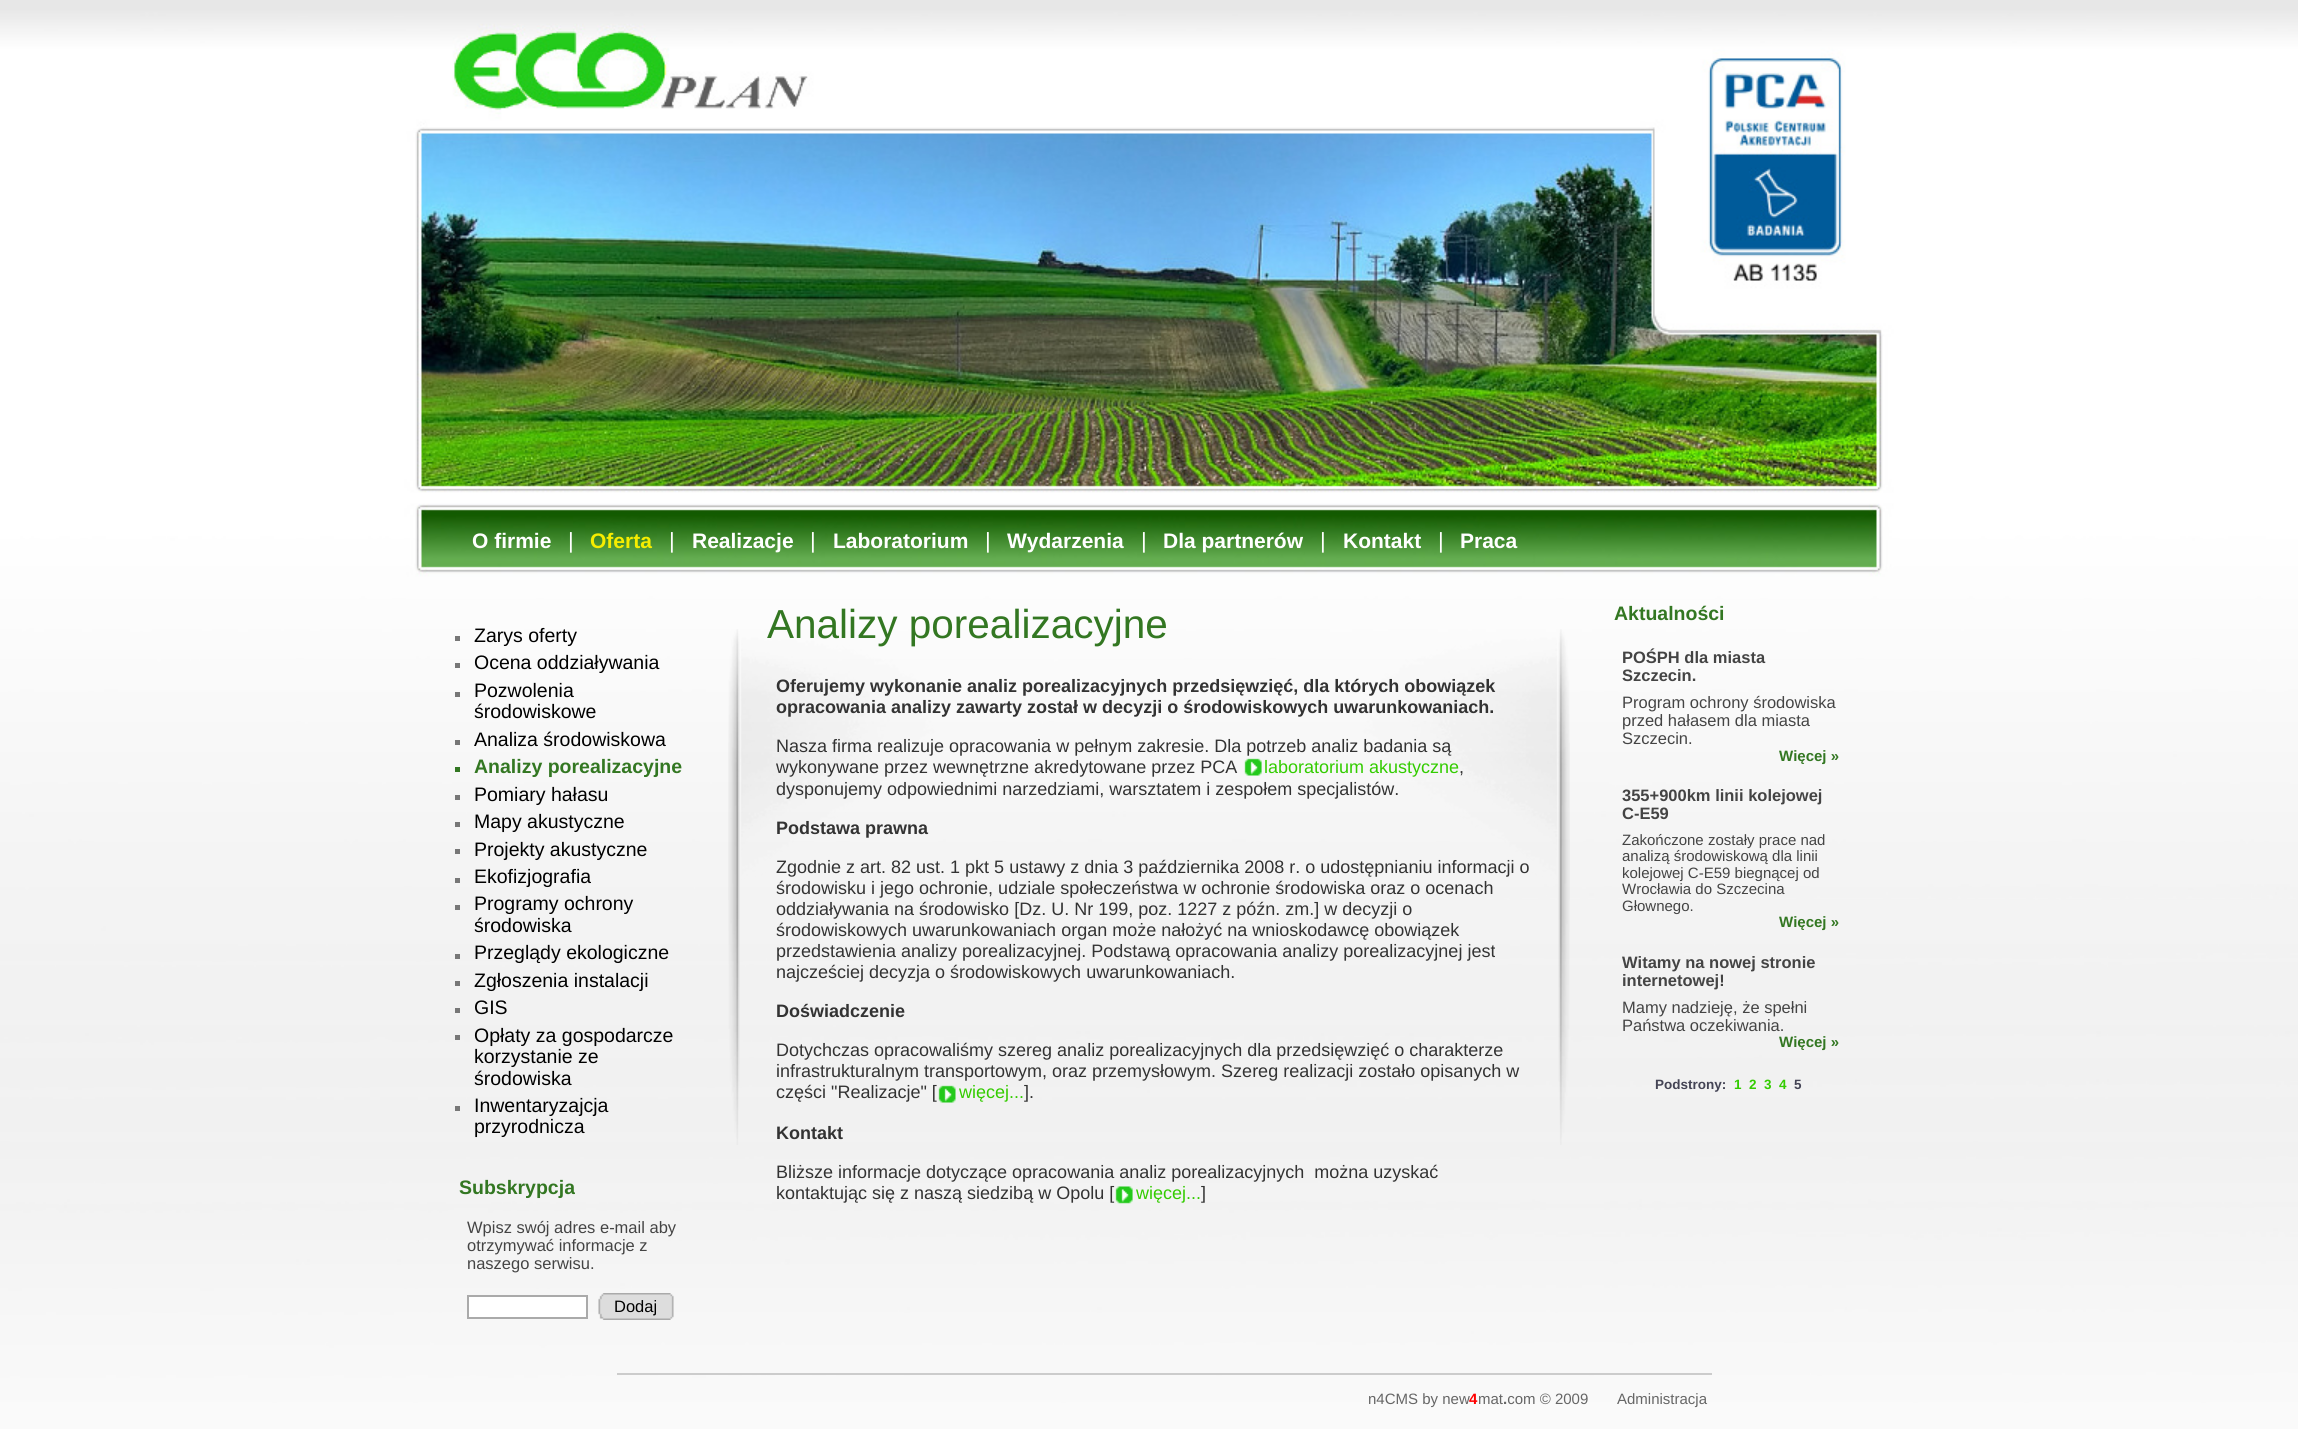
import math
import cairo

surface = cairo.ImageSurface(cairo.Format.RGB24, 2298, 1429)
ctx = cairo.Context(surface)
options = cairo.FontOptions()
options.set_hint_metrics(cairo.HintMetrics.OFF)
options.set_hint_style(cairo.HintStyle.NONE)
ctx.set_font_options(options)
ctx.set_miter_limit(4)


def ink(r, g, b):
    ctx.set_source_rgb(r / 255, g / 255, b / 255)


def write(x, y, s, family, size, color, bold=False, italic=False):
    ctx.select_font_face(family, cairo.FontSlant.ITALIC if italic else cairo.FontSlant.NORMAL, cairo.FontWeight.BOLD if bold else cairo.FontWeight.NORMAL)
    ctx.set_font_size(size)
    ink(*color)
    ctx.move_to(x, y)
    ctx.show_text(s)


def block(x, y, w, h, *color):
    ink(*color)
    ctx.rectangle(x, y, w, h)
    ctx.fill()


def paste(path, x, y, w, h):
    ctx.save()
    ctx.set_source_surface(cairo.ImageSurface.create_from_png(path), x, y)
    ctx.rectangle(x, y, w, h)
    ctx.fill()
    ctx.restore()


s1 = dict(family="Liberation Sans", size=21, color=(255, 255, 255), bold=True)
s2 = dict(family="Liberation Sans", size=22, color=(255, 255, 255))
s3 = dict(family="Liberation Sans", size=21, color=(246, 237, 0), bold=True)
s4 = dict(family="Liberation Sans", size=19.5, color=(0, 0, 0))
s5 = dict(family="Liberation Sans", size=19.5, color=(51, 119, 34), bold=True)
s6 = dict(family="Liberation Sans", size=16.5, color=(68, 68, 68))
s7 = dict(family="Liberation Sans", size=16.5, color=(0, 0, 0))
s8 = dict(family="Liberation Sans", size=40.5, color=(51, 119, 34))
s9 = dict(family="Liberation Sans", size=18, color=(51, 51, 51), bold=True)
s10 = dict(family="Liberation Sans", size=18, color=(51, 51, 51))
s11 = dict(family="Liberation Sans", size=18, color=(51, 204, 0))
s12 = dict(family="Liberation Sans", size=16.5, color=(68, 68, 68), bold=True)
s13 = dict(family="Liberation Sans", size=15, color=(51, 119, 34), bold=True)
s14 = dict(family="Liberation Sans", size=15, color=(68, 68, 68))
s15 = dict(family="Liberation Sans", size=13.5, color=(68, 68, 85), bold=True)
s16 = dict(family="Liberation Sans", size=13.5, color=(51, 204, 0), bold=True)
s17 = dict(family="Liberation Sans", size=15, color=(102, 102, 102))
s18 = dict(family="Liberation Sans", size=15, color=(255, 0, 0), bold=True)
s19 = dict(family="Liberation Sans", size=15, color=(102, 102, 102), bold=True)

ink(255, 255, 255)
ctx.paint()
paste("pic1.png", 0, 0, 2298, 1429)
write(472, 548, "O firmie", **s1)
write(568, 548, "|", **s2)
write(590, 548, "Oferta", **s3)
write(669, 548, "|", **s2)
write(692, 548, "Realizacje", **s1)
write(810, 548, "|", **s2)
write(833, 548, "Laboratorium", **s1)
write(985, 548, "|", **s2)
write(1007, 548, "Wydarzenia", **s1)
write(1141, 548, "|", **s2)
write(1163, 548, "Dla partnerów", **s1)
write(1320, 548, "|", **s2)
write(1343, 548, "Kontakt", **s1)
write(1438, 548, "|", **s2)
write(1460, 548, "Praca", **s1)
block(455, 636, 5, 5, 119, 119, 119)
write(474, 642, "Zarys oferty", **s4)
block(455, 663, 5, 5, 119, 119, 119)
write(474, 669, "Ocena oddziaływania", **s4)
block(455, 692, 5, 5, 119, 119, 119)
write(474, 697, "Pozwolenia", **s4)
write(474, 718, "środowiskowe", **s4)
block(455, 740, 5, 5, 119, 119, 119)
write(474, 746, "Analiza środowiskowa", **s4)
block(455, 767, 5, 5, 51, 119, 34)
write(474, 773, "Analizy porealizacyjne", **s5)
block(455, 795, 5, 5, 119, 119, 119)
write(474, 801, "Pomiary hałasu", **s4)
block(455, 822, 5, 5, 119, 119, 119)
write(474, 828, "Mapy akustyczne", **s4)
block(455, 849, 5, 5, 119, 119, 119)
write(474, 856, "Projekty akustyczne", **s4)
block(455, 878, 5, 5, 119, 119, 119)
write(474, 883, "Ekofizjografia", **s4)
block(455, 905, 5, 5, 119, 119, 119)
write(474, 910, "Programy ochrony", **s4)
write(474, 932, "środowiska", **s4)
block(455, 954, 5, 5, 119, 119, 119)
write(474, 959, "Przeglądy ekologiczne", **s4)
block(455, 981, 5, 5, 119, 119, 119)
write(474, 987, "Zgłoszenia instalacji", **s4)
block(455, 1008, 5, 5, 119, 119, 119)
write(474, 1014, "GIS", **s4)
block(455, 1035, 5, 5, 119, 119, 119)
write(474, 1042, "Opłaty za gospodarcze", **s4)
write(474, 1063, "korzystanie ze", **s4)
write(474, 1085, "środowiska", **s4)
block(455, 1106, 5, 5, 119, 119, 119)
write(474, 1112, "Inwentaryzajcja", **s4)
write(474, 1133, "przyrodnicza", **s4)
write(459, 1194, "Subskrypcja", **s5)
write(467, 1233, "Wpisz swój adres e-mail aby", **s6)
write(467, 1251, "otrzymywać informacje z", **s6)
write(467, 1269, "naszego serwisu.", **s6)
ink(255, 255, 255)
ctx.rectangle(468, 1296, 119, 22)
ctx.fill_preserve()
ink(170, 170, 170)
ctx.stroke()
paste("pic2.png", 598, 1293, 76, 27)
write(614, 1312, "Dodaj", **s7)
paste("pic3.png", 728, 629, 842, 516)
write(767, 638, "Analizy porealizacyjne", **s8)
write(776, 692, "Oferujemy wykonanie analiz porealizacyjnych przedsięwzięć, dla których obowiązek", **s9)
write(776, 713, "opracowania analizy zawarty został w decyzji o środowiskowych uwarunkowaniach.", **s9)
write(776, 752, "Nasza firma realizuje opracowania w pełnym zakresie. Dla potrzeb analiz badania są", **s10)
write(776, 773, "wykonywane przez wewnętrzne akredytowane przez PCA", **s10)
paste("pic4.png", 1244, 758, 18, 18)
write(1264, 773, "laboratorium akustyczne", **s11)
write(1459, 773, ",", **s10)
write(776, 795, "dysponujemy odpowiednimi narzedziami, warsztatem i zespołem specjalistów.", **s10)
write(776, 834, "Podstawa prawna", **s9)
write(776, 873, "Zgodnie z art. 82 ust. 1 pkt 5 ustawy z dnia 3 października 2008 r. o udostępnianiu informacji o", **s10)
write(776, 894, "środowisku i jego ochronie, udziale społeczeństwa w ochronie środowiska oraz o ocenach", **s10)
write(776, 915, "oddziaływania na środowisko [Dz. U. Nr 199, poz. 1227 z późn. zm.] w decyzji o", **s10)
write(776, 936, "środowiskowych uwarunkowaniach organ może nałożyć na wnioskodawcę obowiązek", **s10)
write(776, 957, "przedstawienia analizy porealizacyjnej. Podstawą opracowania analizy porealizacyjnej jest", **s10)
write(776, 978, "najcześciej decyzja o środowiskowych uwarunkowaniach.", **s10)
write(776, 1017, "Doświadczenie", **s9)
write(776, 1056, "Dotychczas opracowaliśmy szereg analiz porealizacyjnych dla przedsięwzięć o charakterze", **s10)
write(776, 1077, "infrastrukturalnym transportowym, oraz przemysłowym. Szereg realizacji zostało opisanych w", **s10)
write(776, 1098, "części \"Realizacje\" [", **s10)
paste("pic5.png", 938, 1085, 18, 18)
write(959, 1098, "więcej...", **s11)
write(1024, 1098, "].", **s10)
write(776, 1139, "Kontakt", **s9)
write(776, 1178, "Bliższe informacje dotyczące opracowania analiz porealizacyjnych  można uzyskać", **s10)
write(776, 1199, "kontaktując się z naszą siedzibą w Opolu [", **s10)
paste("pic6.png", 1115, 1186, 18, 18)
write(1136, 1199, "więcej...", **s11)
write(1201, 1199, "]", **s10)
write(1614, 620, "Aktualności", **s5)
write(1622, 663, "POŚPH dla miasta", **s12)
write(1622, 681, "Szczecin.", **s12)
write(1622, 708, "Program ochrony środowiska", **s6)
write(1622, 726, "przed hałasem dla miasta", **s6)
write(1622, 744, "Szczecin.", **s6)
write(1779, 761, "Więcej »", **s13)
write(1622, 801, "355+900km linii kolejowej", **s12)
write(1622, 819, "C-E59", **s12)
write(1622, 845, "Zakończone zostały prace nad", **s14)
write(1622, 861, "analizą środowiskową dla linii", **s14)
write(1622, 878, "kolejowej C-E59 biegnącej od", **s14)
write(1622, 894, "Wrocławia do Szczecina", **s14)
write(1622, 911, "Głownego.", **s14)
write(1779, 927, "Więcej »", **s13)
write(1622, 968, "Witamy na nowej stronie", **s12)
write(1622, 986, "internetowej!", **s12)
write(1622, 1013, "Mamy nadzieję, że spełni", **s6)
write(1622, 1031, "Państwa oczekiwania.", **s6)
write(1779, 1047, "Więcej »", **s13)
write(1655, 1089, "Podstrony:", **s15)
write(1734, 1089, "1", **s16)
write(1749, 1089, "2", **s16)
write(1764, 1089, "3", **s16)
write(1779, 1089, "4", **s16)
write(1794, 1089, "5", **s15)
block(617, 1373, 1095, 2, 204, 204, 204)
write(1368, 1404, "n4CMS by new", **s17)
write(1469, 1404, "4", **s18)
write(1478, 1404, "mat com © 2009", **s17)
write(1617, 1404, "Administracja", **s17)
write(1503, 1404, ".", **s19)
surface.write_to_png("screenshot.png")
